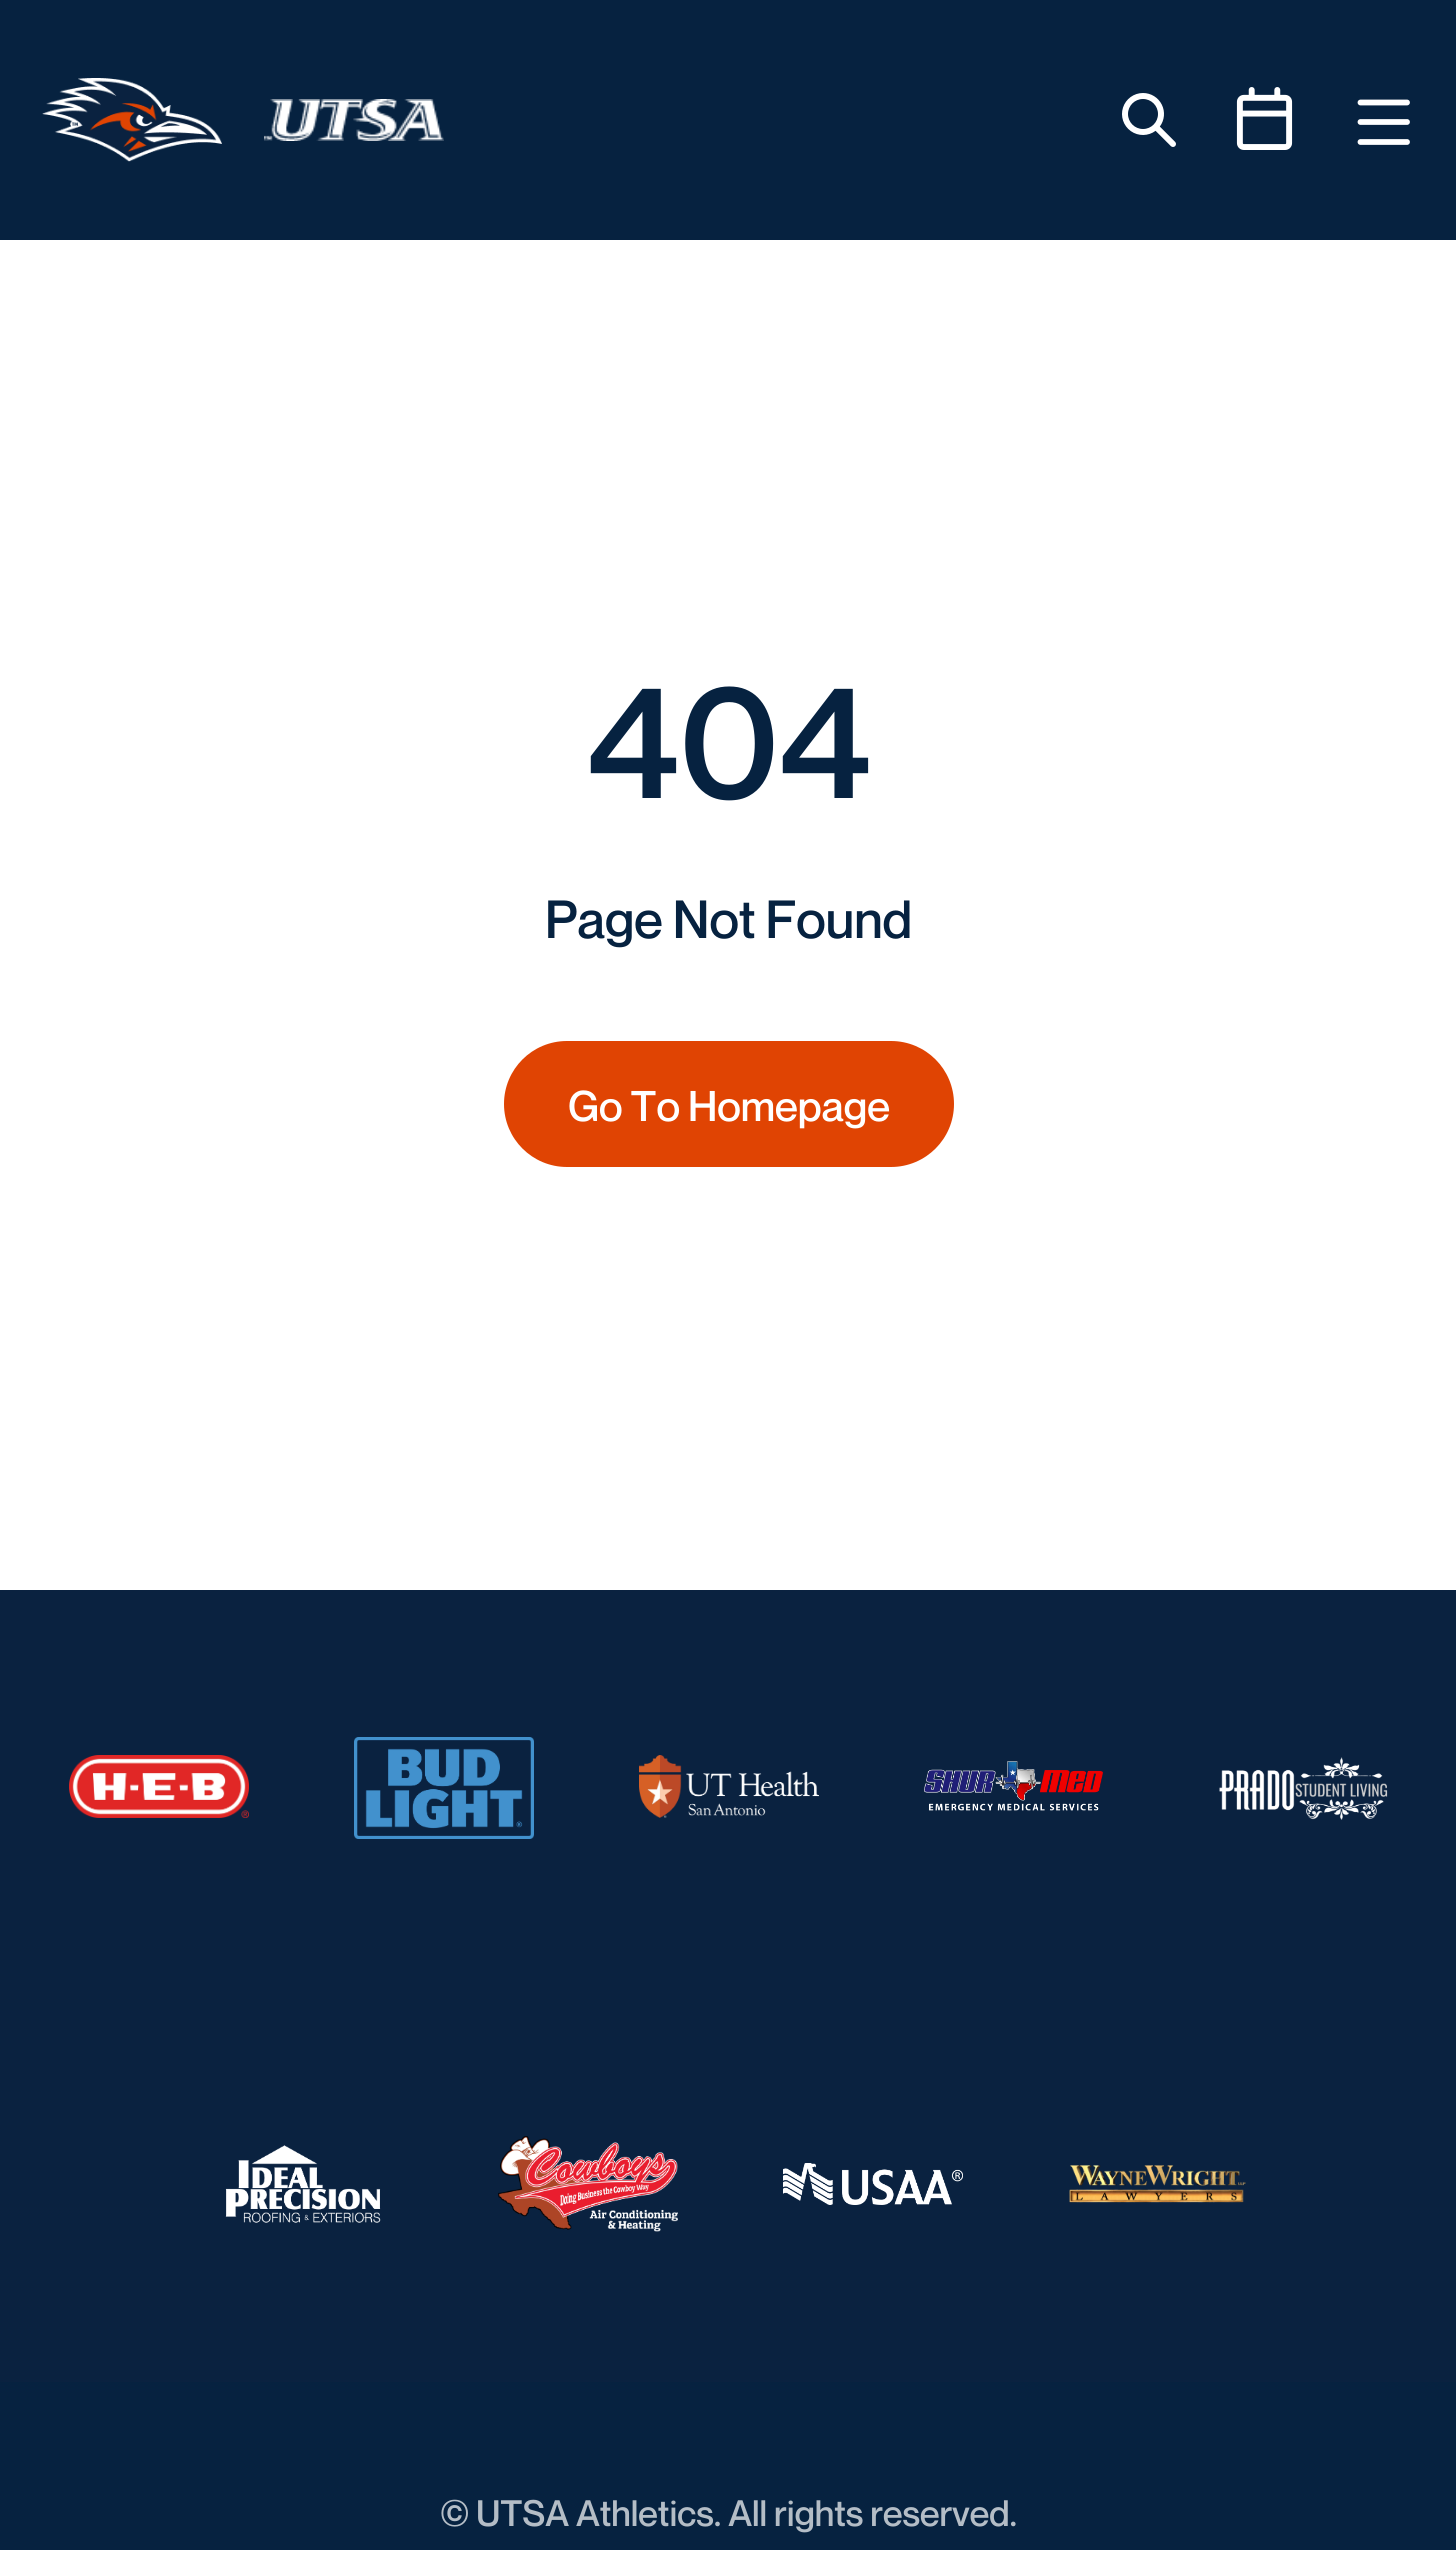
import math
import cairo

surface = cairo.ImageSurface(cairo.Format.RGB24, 1456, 2550)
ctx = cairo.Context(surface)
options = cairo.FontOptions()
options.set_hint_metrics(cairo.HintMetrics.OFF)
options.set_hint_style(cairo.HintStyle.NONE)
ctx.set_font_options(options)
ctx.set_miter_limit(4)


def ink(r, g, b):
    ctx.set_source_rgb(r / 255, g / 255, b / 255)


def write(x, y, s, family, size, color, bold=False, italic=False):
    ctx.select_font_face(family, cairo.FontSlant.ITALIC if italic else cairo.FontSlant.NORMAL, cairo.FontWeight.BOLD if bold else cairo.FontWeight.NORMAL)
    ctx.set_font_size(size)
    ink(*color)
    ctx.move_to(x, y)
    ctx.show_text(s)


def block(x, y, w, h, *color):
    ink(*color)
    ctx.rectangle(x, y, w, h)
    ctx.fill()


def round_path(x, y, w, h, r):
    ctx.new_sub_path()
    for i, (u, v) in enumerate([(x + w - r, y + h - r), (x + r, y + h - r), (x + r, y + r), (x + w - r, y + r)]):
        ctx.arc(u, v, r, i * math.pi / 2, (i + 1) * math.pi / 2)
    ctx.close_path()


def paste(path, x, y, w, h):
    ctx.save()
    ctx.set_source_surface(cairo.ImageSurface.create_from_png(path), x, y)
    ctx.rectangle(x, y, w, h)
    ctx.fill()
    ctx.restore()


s1 = dict(family="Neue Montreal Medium", size=158, color=(6, 34, 64))
s2 = dict(family="Neue Montreal Medium", size=52.5, color=(6, 34, 64))
s3 = dict(family="Neue Montreal Medium", size=42, color=(255, 255, 255))
s4 = dict(family="Neue Montreal Medium", size=36, color=(180, 189, 198))

ink(255, 255, 255)
ctx.paint()
block(0, 0, 1456, 240, 6, 34, 64)
paste("pic1.png", 42, 78, 180, 84)
paste("pic2.png", 264, 99, 180, 42)
paste("pic3.png", 1122, 93, 54, 54)
paste("pic4.png", 1236, 87, 57, 63)
ctx.new_path()
ctx.move_to(1360.5, 102.5)
ctx.line_to(1407, 102.5)
ctx.move_to(1360.5, 122)
ctx.line_to(1407, 122)
ctx.move_to(1407, 142)
ctx.line_to(1360.5, 142)
ink(255, 255, 255)
ctx.set_line_width(5.8)
ctx.set_line_cap(cairo.LineCap.ROUND)
ctx.stroke()
write(587, 798, "404", **s1)
write(545, 938, "Page Not Found", **s2)
ink(224, 68, 3)
round_path(504, 1041, 450, 126, 63)
ctx.fill()
write(568, 1121, "Go To Homepage", **s3)
block(0, 1590, 1456, 792, 10, 34, 64)
paste("pic5.png", 69, 1755, 180, 63)
paste("pic6.png", 354, 1737, 180, 102)
paste("pic7.png", 639, 1755, 180, 63)
paste("pic8.png", 924, 1761, 179, 50)
paste("pic9.png", 1219, 1757, 169, 63)
paste("pic10.png", 225, 2145, 156, 78)
paste("pic11.png", 498, 2136, 180, 96)
paste("pic12.png", 783, 2163, 180, 42)
paste("pic13.png", 1069, 2165, 177, 38)
block(0, 2382, 1456, 168, 6, 34, 64)
write(440, 2526, "© UTSA Athletics. All rights reserved.", **s4)
surface.write_to_png("screenshot.png")
